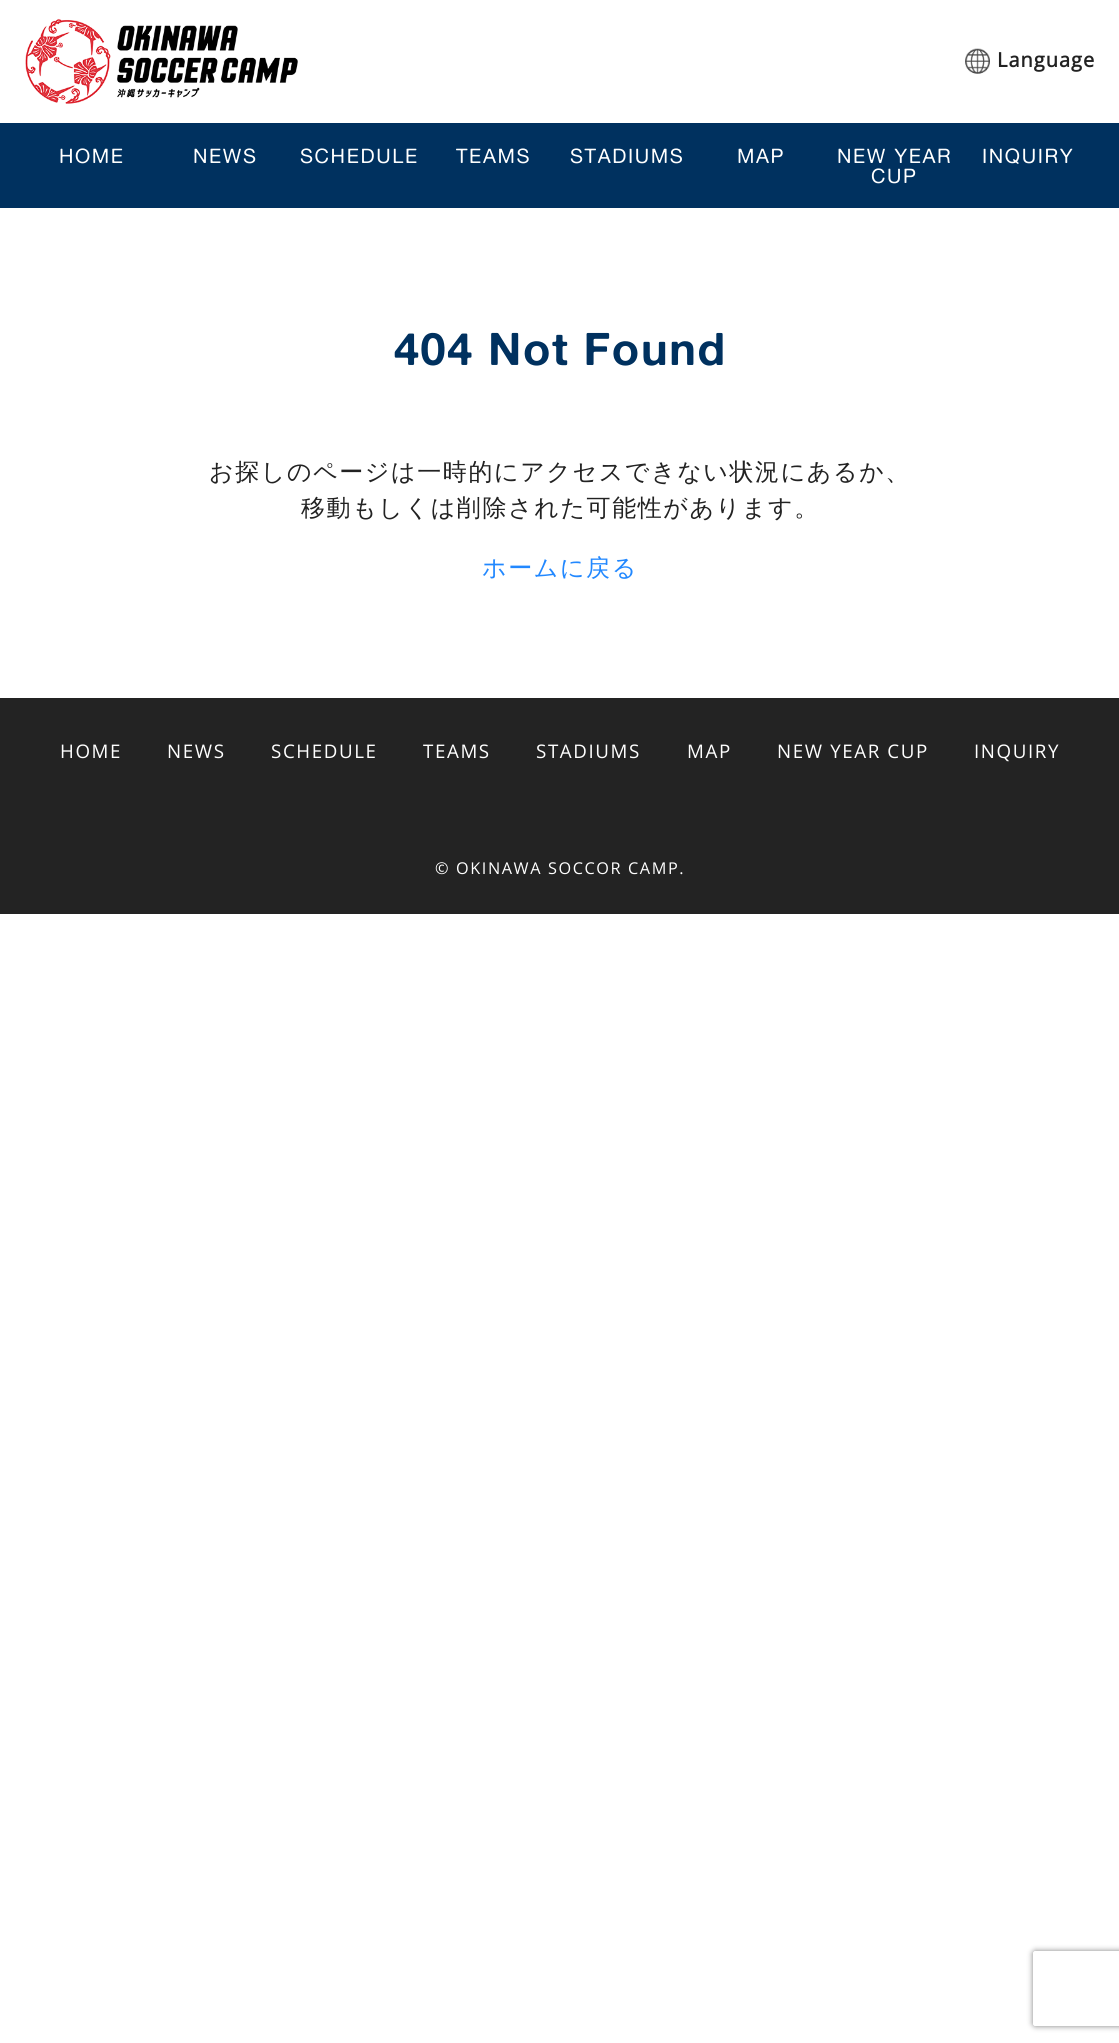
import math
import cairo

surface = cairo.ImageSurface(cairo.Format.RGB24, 1119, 2043)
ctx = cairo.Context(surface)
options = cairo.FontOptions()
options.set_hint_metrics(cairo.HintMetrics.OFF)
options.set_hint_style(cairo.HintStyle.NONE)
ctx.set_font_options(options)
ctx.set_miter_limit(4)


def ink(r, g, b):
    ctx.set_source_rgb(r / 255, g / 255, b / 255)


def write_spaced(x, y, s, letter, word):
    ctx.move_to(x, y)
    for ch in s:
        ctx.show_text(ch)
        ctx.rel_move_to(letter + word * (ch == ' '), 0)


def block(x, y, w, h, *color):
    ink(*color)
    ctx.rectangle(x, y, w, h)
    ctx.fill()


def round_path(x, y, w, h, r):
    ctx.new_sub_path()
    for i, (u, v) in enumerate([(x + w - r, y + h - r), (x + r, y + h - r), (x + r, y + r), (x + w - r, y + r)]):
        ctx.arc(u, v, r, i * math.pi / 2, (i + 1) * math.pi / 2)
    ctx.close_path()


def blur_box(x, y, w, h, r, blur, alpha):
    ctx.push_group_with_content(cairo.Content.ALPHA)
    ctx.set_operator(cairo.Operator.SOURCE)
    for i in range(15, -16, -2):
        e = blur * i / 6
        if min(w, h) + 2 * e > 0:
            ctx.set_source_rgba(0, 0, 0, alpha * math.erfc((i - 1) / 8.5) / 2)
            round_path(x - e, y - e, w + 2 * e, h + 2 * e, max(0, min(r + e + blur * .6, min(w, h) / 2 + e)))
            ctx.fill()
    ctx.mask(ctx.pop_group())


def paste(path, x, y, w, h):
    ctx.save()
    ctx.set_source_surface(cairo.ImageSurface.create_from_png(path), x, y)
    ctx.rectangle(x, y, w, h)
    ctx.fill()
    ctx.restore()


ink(255, 255, 255)
ctx.paint()
paste("pic1.png", 25, 18, 273, 86)
paste("pic2.png", 965, 48, 25, 26)
ctx.select_font_face("Open Sans", cairo.FontSlant.NORMAL, cairo.FontWeight.BOLD)
ctx.set_font_size(20)
ink(34, 34, 34)
write_spaced(997, 67, "Language", 1, 0)
block(0, 123, 1119, 85, 0, 49, 95)
ctx.select_font_face("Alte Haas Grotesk")
ink(255, 255, 255)
write_spaced(59, 163, "HOME", 1.6, 0)
write_spaced(193, 163, "NEWS", 1.6, 0)
write_spaced(300, 163, "SCHEDULE", 1.6, 0)
write_spaced(456, 163, "TEAMS", 1.6, 0)
write_spaced(570, 163, "STADIUMS", 1.6, 0)
write_spaced(737, 163, "MAP", 1.6, 0)
write_spaced(837, 163, "NEW YEAR", 1.6, 0)
write_spaced(871, 183, "CUP", 1.6, 0)
write_spaced(982, 163, "INQUIRY", 1.6, 0)
ctx.select_font_face("Alte Haas Grotesk", cairo.FontSlant.NORMAL, cairo.FontWeight.BOLD)
ctx.set_font_size(45)
ink(0, 49, 95)
write_spaced(394, 365, "404 Not Found", 1.6, 0)
ctx.select_font_face("WenQuanYi Zen Hei Medium")
ctx.set_font_size(24)
ink(34, 34, 34)
write_spaced(209, 480, "お探しのページは一時的にアクセスできない状況にあるか、", 1.6, 0)
write_spaced(301, 516, "移動もしくは削除された可能性があります。", 1.6, 0)
ink(34, 136, 255)
write_spaced(482, 576, "ホームに戻る", 1.6, 0)
block(0, 698, 1119, 216, 35, 35, 35)
ctx.select_font_face("Open Sans")
ctx.set_font_size(18.75)
ink(255, 255, 255)
write_spaced(60, 758, "HOME", 1.6, 0)
write_spaced(167, 758, "NEWS", 1.6, 0)
write_spaced(271, 758, "SCHEDULE", 1.6, 0)
write_spaced(423, 758, "TEAMS", 1.6, 0)
write_spaced(536, 758, "STADIUMS", 1.6, 0)
write_spaced(687, 758, "MAP", 1.6, 0)
write_spaced(777, 758, "NEW YEAR CUP", 1.6, 0)
write_spaced(974, 758, "INQUIRY", 1.6, 0)
ctx.set_font_size(16.25)
write_spaced(435, 874, "© OKINAWA SOCCOR CAMP.", 1.6, 0)
ctx.save()
ctx.set_fill_rule(cairo.FillRule.EVEN_ODD)
ctx.new_path()
ctx.move_to(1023, 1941)
ctx.line_to(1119, 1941)
ctx.line_to(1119, 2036)
ctx.line_to(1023, 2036)
ctx.close_path()
ctx.move_to(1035.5, 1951)
ctx.line_to(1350.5, 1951)
ctx.curve_to(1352, 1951, 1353, 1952, 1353, 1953.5)
ctx.line_to(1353, 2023.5)
ctx.curve_to(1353, 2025, 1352, 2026, 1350.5, 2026)
ctx.line_to(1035.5, 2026)
ctx.curve_to(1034, 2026, 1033, 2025, 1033, 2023.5)
ctx.line_to(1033, 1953.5)
ctx.curve_to(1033, 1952, 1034, 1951, 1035.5, 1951)
ctx.close_path()
ctx.clip()
ink(128, 128, 128)
blur_box(1033, 1951, 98, 75, 2.5, 3, 1)
ctx.restore()
surface.write_to_png("screenshot.png")
